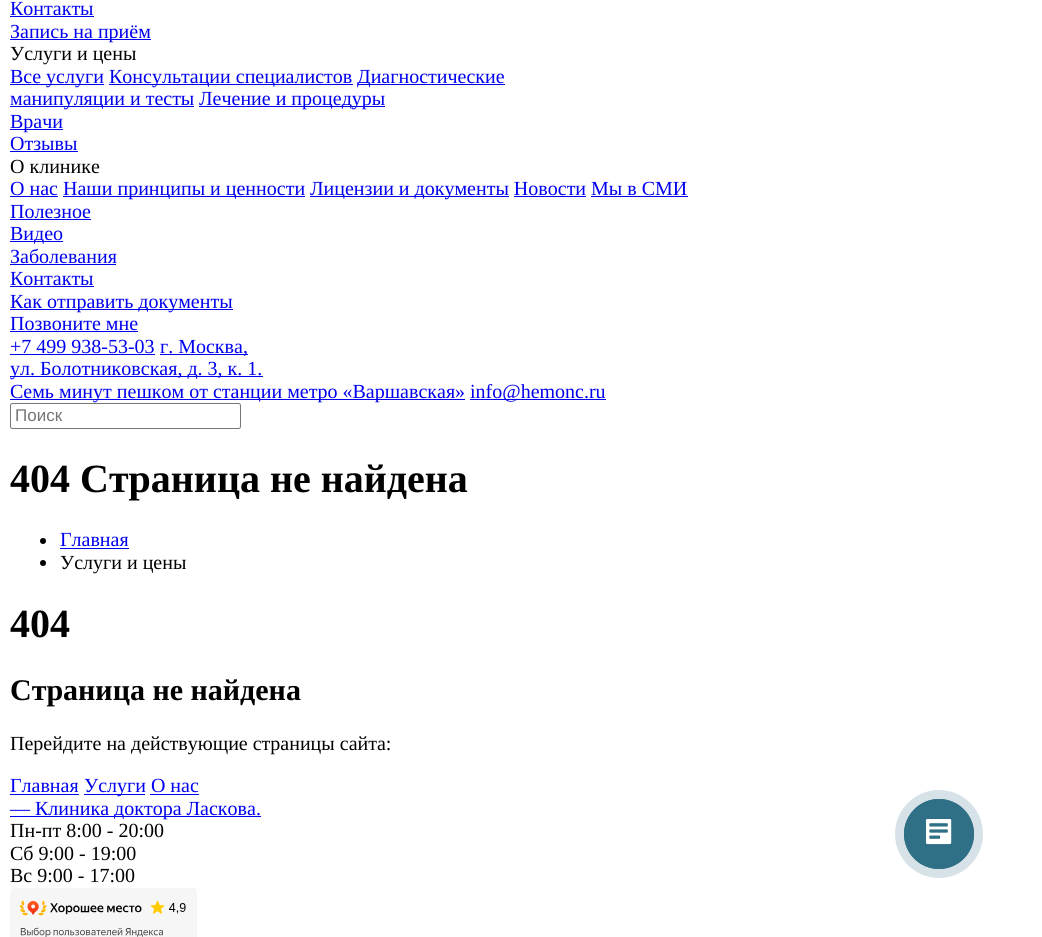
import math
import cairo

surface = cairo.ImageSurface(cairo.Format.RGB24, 1042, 937)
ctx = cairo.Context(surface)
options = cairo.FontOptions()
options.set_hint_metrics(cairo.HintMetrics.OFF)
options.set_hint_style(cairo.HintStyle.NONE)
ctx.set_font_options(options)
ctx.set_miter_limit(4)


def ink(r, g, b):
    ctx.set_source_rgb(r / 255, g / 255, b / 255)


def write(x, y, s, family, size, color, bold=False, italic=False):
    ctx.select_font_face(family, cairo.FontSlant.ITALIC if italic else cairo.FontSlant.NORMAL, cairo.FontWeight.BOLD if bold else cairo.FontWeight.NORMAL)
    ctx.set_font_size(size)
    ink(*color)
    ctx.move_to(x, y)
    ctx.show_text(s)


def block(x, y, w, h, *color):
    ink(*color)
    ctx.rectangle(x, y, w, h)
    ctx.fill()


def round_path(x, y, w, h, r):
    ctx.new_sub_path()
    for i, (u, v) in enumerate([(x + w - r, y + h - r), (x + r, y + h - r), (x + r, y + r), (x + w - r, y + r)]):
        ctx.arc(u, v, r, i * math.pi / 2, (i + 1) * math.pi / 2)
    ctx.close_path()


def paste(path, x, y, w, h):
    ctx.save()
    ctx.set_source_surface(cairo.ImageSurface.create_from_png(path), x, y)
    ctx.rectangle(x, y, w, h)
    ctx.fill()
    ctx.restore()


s1 = dict(family="Liberation Serif", size=20, color=(0, 0, 238))
s2 = dict(family="Liberation Serif", size=20, color=(0, 0, 0))
s3 = dict(family="Liberation Sans", size=17, color=(117, 117, 117))
s4 = dict(family="Liberation Serif", size=40, color=(0, 0, 0), bold=True)
s5 = dict(family="Liberation Serif", size=30, color=(0, 0, 0), bold=True)

ink(255, 255, 255)
ctx.paint()
write(10, 15, "Контакты", **s1)
block(10, 16, 84, 1, 0, 0, 238)
block(10, 39, 141, 1, 0, 0, 238)
write(10, 38, "Запись на приём", **s1)
write(10, 60, "Услуги и цены", **s2)
block(10, 84, 94, 1, 0, 0, 238)
write(10, 83, "Все услуги", **s1)
block(109, 84, 244, 1, 0, 0, 238)
write(109, 83, "Консультации специалистов", **s1)
block(358, 84, 147, 1, 0, 0, 238)
write(357, 83, "Диагностические", **s1)
block(10, 106, 184, 1, 0, 0, 238)
write(10, 105, "манипуляции и тесты", **s1)
block(199, 106, 186, 1, 0, 0, 238)
write(199, 105, "Лечение и процедуры", **s1)
block(10, 129, 53, 1, 0, 0, 238)
write(10, 128, "Врачи", **s1)
write(10, 150, "Отзывы", **s1)
block(10, 151, 68, 1, 0, 0, 238)
write(10, 173, "О клинике", **s2)
write(10, 195, "О нас", **s1)
block(10, 196, 48, 1, 0, 0, 238)
block(63, 196, 242, 1, 0, 0, 238)
write(63, 195, "Наши принципы и ценности", **s1)
block(310, 196, 199, 1, 0, 0, 238)
write(310, 195, "Лицензии и документы Новости Мы в СМИ", **s1)
block(514, 196, 72, 1, 0, 0, 238)
block(591, 196, 97, 1, 0, 0, 238)
write(10, 218, "Полезное", **s1)
block(10, 219, 81, 1, 0, 0, 238)
block(10, 241, 53, 1, 0, 0, 238)
write(10, 240, "Видео", **s1)
write(10, 263, "Заболевания", **s1)
block(10, 264, 106, 1, 0, 0, 238)
write(10, 285, "Контакты", **s1)
block(10, 286, 84, 1, 0, 0, 238)
block(10, 309, 223, 1, 0, 0, 238)
write(10, 308, "Как отправить документы", **s1)
write(10, 330, "Позвоните мне", **s1)
block(10, 331, 128, 1, 0, 0, 238)
write(10, 353, "+7 499 938-53-03", **s1)
block(10, 354, 145, 1, 0, 0, 238)
block(160, 354, 88, 1, 0, 0, 238)
write(160, 353, "г. Москва,", **s1)
block(10, 376, 253, 1, 0, 0, 238)
write(10, 375, "ул. Болотниковская, д. 3, к. 1.", **s1)
block(10, 399, 455, 1, 0, 0, 238)
write(10, 398, "Семь минут пешком от станции метро «Варшавская»", **s1)
block(470, 399, 136, 1, 0, 0, 238)
write(470, 398, "info@hemonc.ru", **s1)
round_path(10.5, 403.5, 230, 25, 2)
ink(118, 118, 118)
ctx.set_line_width(1)
ctx.stroke()
write(15, 421, "Поиск", **s3)
write(10, 492, "404 Страница не найдена", **s4)
ctx.new_path()
ctx.arc(43, 541, 3, 0, 2 * math.pi)
ctx.fill()
write(60, 546, "Главная", **s1)
block(60, 548, 69, 1, 0, 0, 238)
ink(0, 0, 0)
ctx.new_path()
ctx.arc(43, 563, 3, 0, 2 * math.pi)
ctx.fill()
write(60, 569, "Услуги и цены", **s2)
write(10, 637, "404", **s4)
write(10, 700, "Страница не найдена", **s5)
write(10, 750, "Перейдите на действующие страницы сайта:", **s2)
write(10, 792, "Главная", **s1)
block(10, 794, 69, 1, 0, 0, 238)
block(84, 794, 61, 1, 0, 0, 238)
write(84, 792, "Услуги О нас", **s1)
block(150, 794, 49, 1, 0, 0, 238)
block(10, 816, 251, 1, 0, 0, 238)
write(10, 815, "— Клиника доктора Ласкова.", **s1)
write(10, 837, "Пн-пт 8:00 - 20:00", **s2)
write(10, 860, "Сб 9:00 - 19:00", **s2)
write(10, 882, "Вс 9:00 - 17:00", **s2)
paste("pic1.png", 10, 888, 187, 49)
ink(214, 226, 231)
ctx.arc(939, 834, 44, 0, 2 * math.pi)
ctx.fill()
ctx.arc(939, 834, 34.5, 0, 2 * math.pi)
ink(48, 112, 134)
ctx.stroke()
ctx.arc(939, 834, 35, 0, 2 * math.pi)
ctx.fill()
paste("pic2.png", 926, 819, 26, 26)
surface.write_to_png("screenshot.png")
